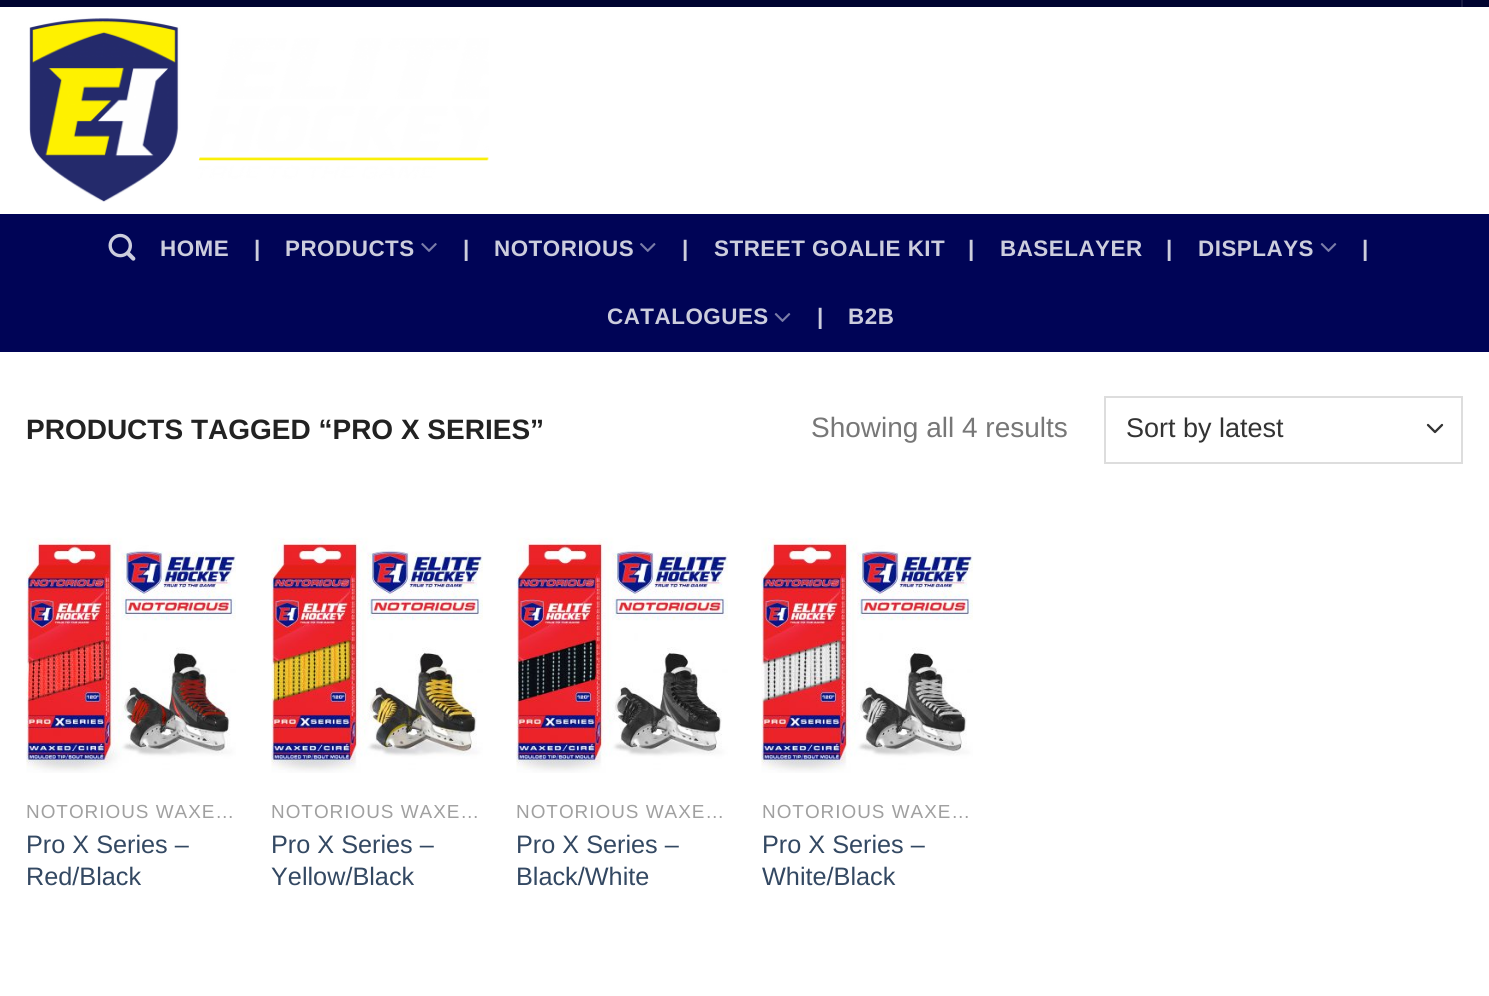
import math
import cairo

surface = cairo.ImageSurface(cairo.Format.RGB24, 1489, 996)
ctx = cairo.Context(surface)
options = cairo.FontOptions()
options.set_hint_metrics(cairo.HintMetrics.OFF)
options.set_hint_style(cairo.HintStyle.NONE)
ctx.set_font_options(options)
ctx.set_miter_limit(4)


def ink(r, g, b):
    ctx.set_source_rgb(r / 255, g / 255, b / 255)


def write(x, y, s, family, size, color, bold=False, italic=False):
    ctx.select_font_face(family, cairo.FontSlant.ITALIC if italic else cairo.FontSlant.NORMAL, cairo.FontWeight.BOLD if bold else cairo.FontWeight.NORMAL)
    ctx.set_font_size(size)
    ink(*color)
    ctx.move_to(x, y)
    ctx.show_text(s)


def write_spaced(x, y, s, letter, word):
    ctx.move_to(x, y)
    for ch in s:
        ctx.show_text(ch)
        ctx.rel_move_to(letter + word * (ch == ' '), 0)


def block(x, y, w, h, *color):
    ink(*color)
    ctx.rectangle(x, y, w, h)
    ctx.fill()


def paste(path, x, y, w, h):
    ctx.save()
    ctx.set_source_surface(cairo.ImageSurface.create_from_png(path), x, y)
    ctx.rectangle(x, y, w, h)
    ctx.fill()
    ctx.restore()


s1 = dict(family="Liberation Sans", size=28, color=(34, 34, 34), bold=True)
s2 = dict(family="Liberation Sans", size=28, color=(119, 119, 119))
s3 = dict(family="Liberation Sans", size=27, color=(51, 51, 51))
s4 = dict(family="Liberation Sans", size=25.25, color=(51, 72, 98))

ink(255, 255, 255)
ctx.paint()
block(0, 0, 1489, 7, 0, 4, 48)
block(1461, 0, 2, 7, 26, 29, 69)
paste("pic1.png", 29, 18, 460, 184)
block(0, 214, 1489, 138, 0, 4, 86)
paste("pic2.png", 108, 233, 28, 28)
ctx.select_font_face("Liberation Sans", cairo.FontSlant.NORMAL, cairo.FontWeight.BOLD)
ctx.set_font_size(22.4)
ink(204, 205, 221)
write_spaced(160, 256, "HOME", 0.5, 0)
write_spaced(254, 256, "|", 0.5, 0)
write_spaced(285, 256, "PRODUCTS", 0.5, 0)
paste("pic3.png", 421, 243, 16, 9)
write_spaced(463, 256, "|", 0.5, 0)
write_spaced(494, 256, "NOTORIOUS", 0.5, 0)
paste("pic4.png", 640, 243, 16, 9)
write_spaced(682, 256, "|", 0.5, 0)
write_spaced(714, 256, "STREET GOALIE KIT", 0.5, 0)
write_spaced(968, 256, "|", 0.5, 0)
write_spaced(1000, 256, "BASELAYER", 0.5, 0)
write_spaced(1166, 256, "|", 0.5, 0)
write_spaced(1198, 256, "DISPLAYS", 0.5, 0)
paste("pic5.png", 1320, 243, 17, 9)
write_spaced(1362, 256, "|", 0.5, 0)
write_spaced(607, 324, "CATALOGUES", 0.5, 0)
paste("pic5.png", 774, 313, 17, 9)
write_spaced(817, 324, "|", 0.5, 0)
write_spaced(848, 324, "B2B", 0.5, 0)
write(26, 439, "PRODUCTS TAGGED “PRO X SERIES”", **s1)
write(811, 437, "Showing all 4 results", **s2)
ctx.new_path()
ctx.move_to(1428, 425)
ctx.line_to(1435, 432)
ctx.line_to(1442, 425)
ink(51, 51, 51)
ctx.set_line_width(2.3)
ctx.set_line_cap(cairo.LineCap.ROUND)
ctx.set_line_join(cairo.LineJoin.ROUND)
ctx.stroke()
ctx.rectangle(1105, 397, 357, 66)
ink(221, 221, 221)
ctx.set_line_width(2)
ctx.set_line_cap(cairo.LineCap.BUTT)
ctx.set_line_join(cairo.LineJoin.MITER)
ctx.stroke()
write(1126, 437, "Sort by latest", **s3)
paste("pic6.png", 26, 537, 210, 236)
ctx.set_font_size(18.9)
ink(160, 160, 160)
write_spaced(26, 818, "NOTORIOUS WAXE…", 1, 0)
write(26, 853, "Pro X Series –", **s4)
write(26, 885, "Red/Black", **s4)
paste("pic7.png", 271, 537, 212, 236)
ctx.set_font_size(18.9)
ink(160, 160, 160)
write_spaced(271, 818, "NOTORIOUS WAXE…", 1, 0)
write(271, 853, "Pro X Series –", **s4)
write(271, 885, "Yellow/Black", **s4)
paste("pic8.png", 516, 537, 212, 236)
ctx.set_font_size(18.9)
ink(160, 160, 160)
write_spaced(516, 818, "NOTORIOUS WAXE…", 1, 0)
write(516, 853, "Pro X Series –", **s4)
write(516, 885, "Black/White", **s4)
paste("pic9.png", 761, 537, 212, 236)
ctx.set_font_size(18.9)
ink(160, 160, 160)
write_spaced(762, 818, "NOTORIOUS WAXE…", 1, 0)
write(762, 853, "Pro X Series –", **s4)
write(762, 885, "White/Black", **s4)
surface.write_to_png("screenshot.png")
